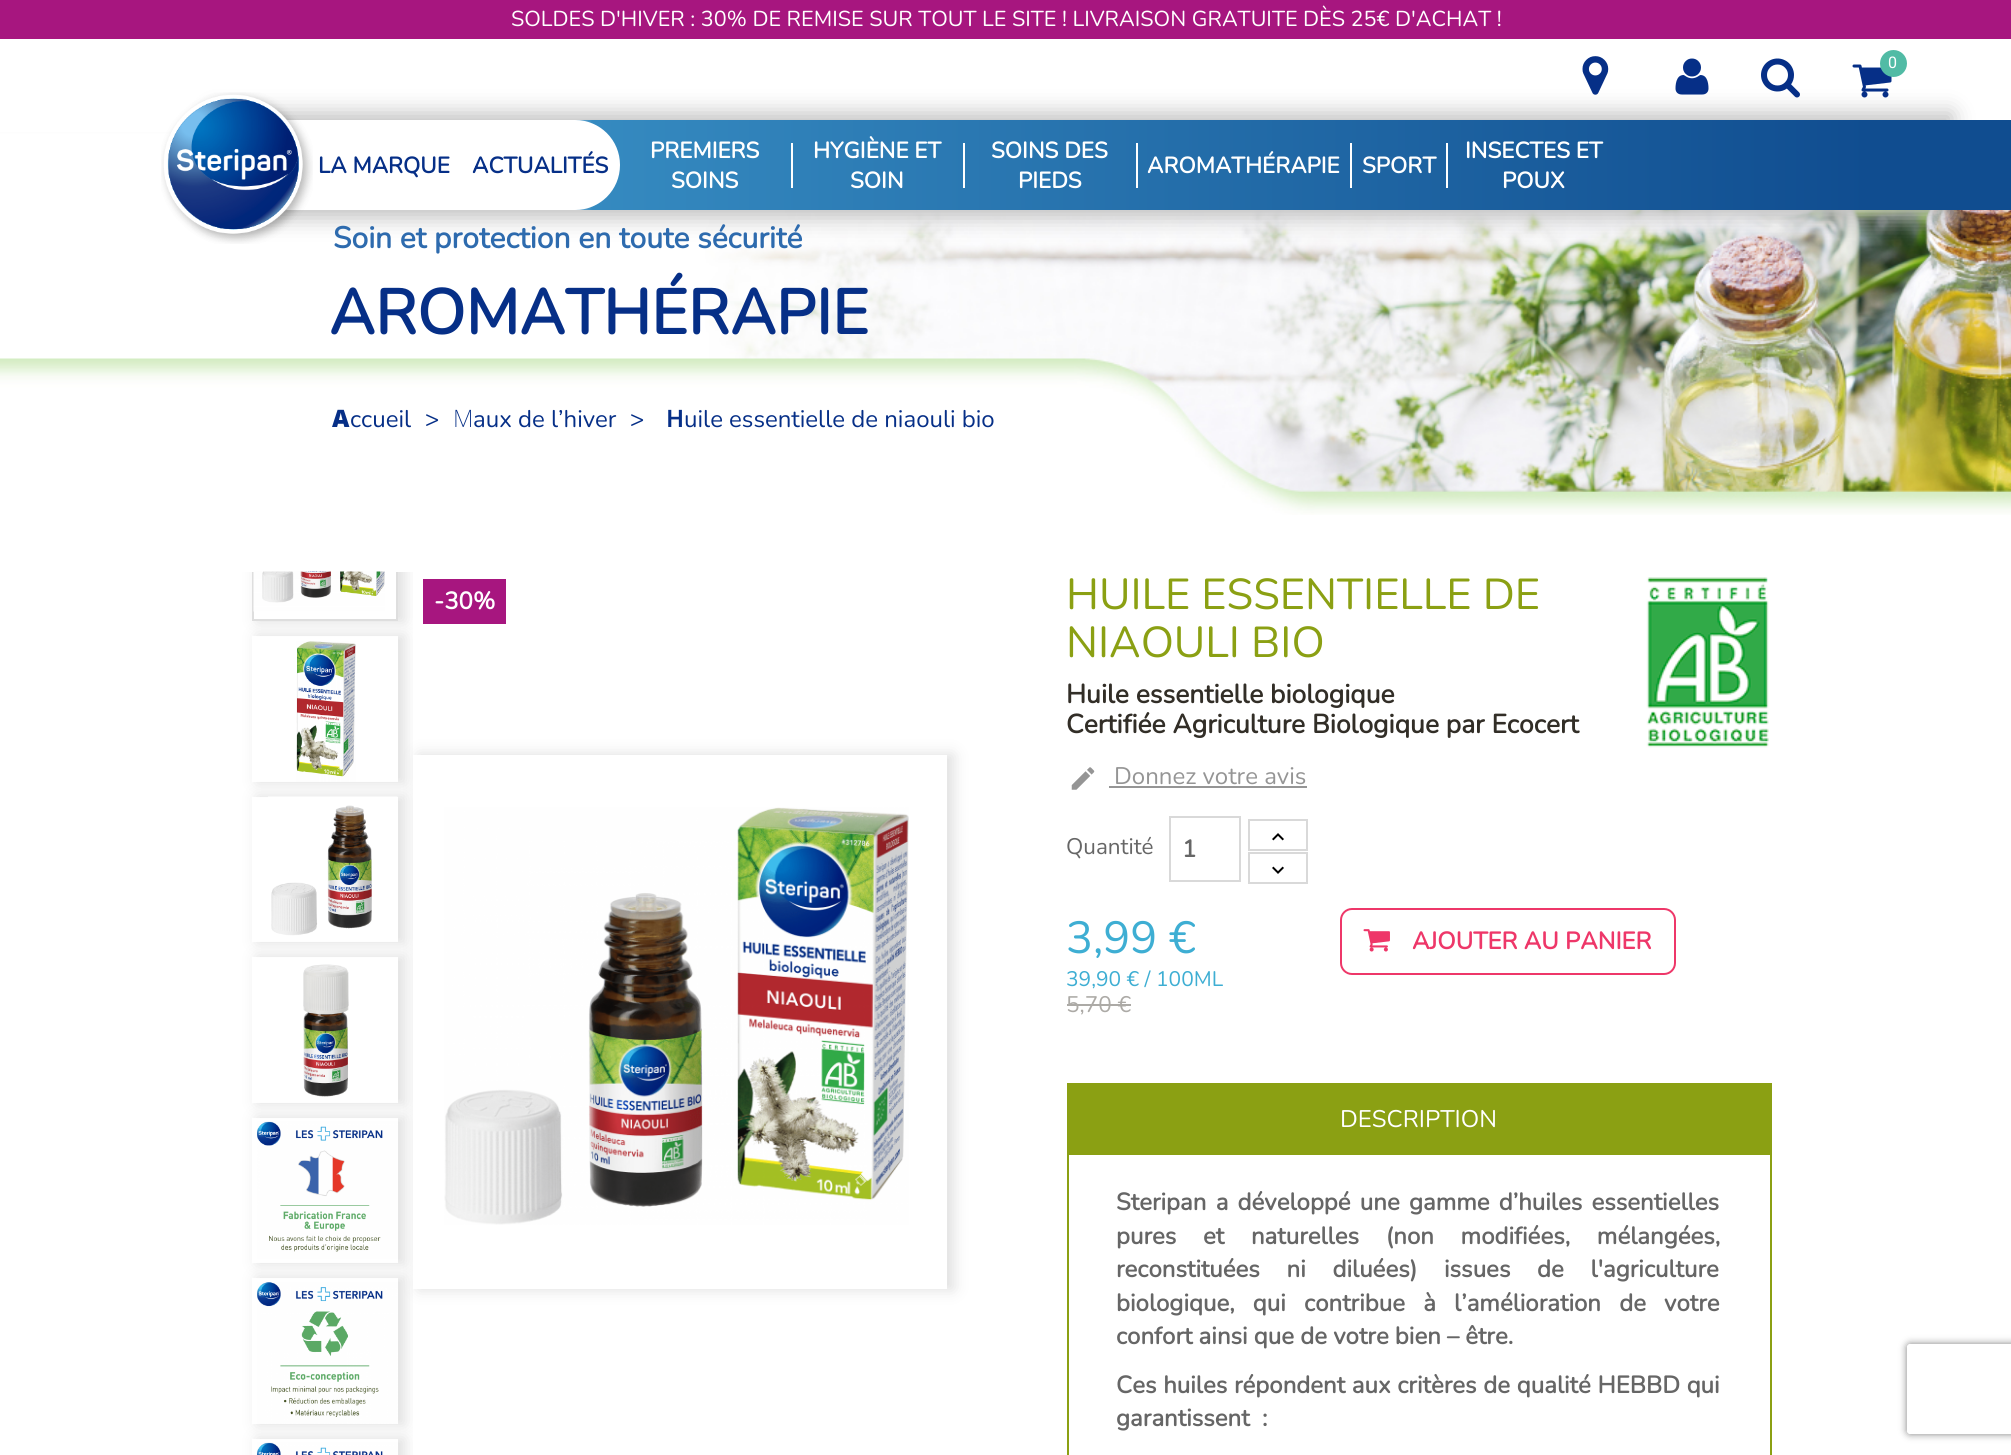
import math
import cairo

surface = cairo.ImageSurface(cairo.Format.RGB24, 2011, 1455)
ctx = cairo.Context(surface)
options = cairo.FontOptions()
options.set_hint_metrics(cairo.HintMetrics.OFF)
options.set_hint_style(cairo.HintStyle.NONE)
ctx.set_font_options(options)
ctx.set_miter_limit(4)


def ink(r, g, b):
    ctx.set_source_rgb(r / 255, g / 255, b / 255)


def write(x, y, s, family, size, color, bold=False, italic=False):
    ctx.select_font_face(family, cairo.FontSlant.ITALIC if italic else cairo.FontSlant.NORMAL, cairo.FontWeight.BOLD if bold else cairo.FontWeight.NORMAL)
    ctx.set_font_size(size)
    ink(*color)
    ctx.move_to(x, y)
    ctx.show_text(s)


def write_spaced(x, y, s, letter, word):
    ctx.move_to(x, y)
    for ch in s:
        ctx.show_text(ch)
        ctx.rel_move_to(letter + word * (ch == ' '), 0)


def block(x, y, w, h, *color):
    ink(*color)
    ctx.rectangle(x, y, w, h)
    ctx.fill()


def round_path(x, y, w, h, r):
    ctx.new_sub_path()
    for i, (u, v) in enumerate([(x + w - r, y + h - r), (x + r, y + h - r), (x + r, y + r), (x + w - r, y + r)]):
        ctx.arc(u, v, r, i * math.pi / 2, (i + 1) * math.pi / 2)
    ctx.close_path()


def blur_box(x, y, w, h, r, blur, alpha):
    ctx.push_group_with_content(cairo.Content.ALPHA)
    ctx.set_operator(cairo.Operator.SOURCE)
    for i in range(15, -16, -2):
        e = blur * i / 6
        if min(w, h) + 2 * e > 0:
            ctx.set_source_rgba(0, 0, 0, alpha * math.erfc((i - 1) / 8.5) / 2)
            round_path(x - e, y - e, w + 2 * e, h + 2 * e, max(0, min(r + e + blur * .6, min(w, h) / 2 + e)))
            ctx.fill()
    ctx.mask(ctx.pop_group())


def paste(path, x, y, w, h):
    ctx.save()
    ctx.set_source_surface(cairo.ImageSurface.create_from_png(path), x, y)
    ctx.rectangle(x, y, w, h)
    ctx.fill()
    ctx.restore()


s1 = dict(family="Nunito ExtraLight", size=21.6, color=(255, 255, 255))
s2 = dict(family="Roboto", size=16, color=(255, 255, 255))
s3 = dict(family="Nunito", size=22.5, color=(6, 47, 135), bold=True)
s4 = dict(family="Nunito", size=22.5, color=(255, 255, 255), bold=True)
s5 = dict(family="Nunito", size=30, color=(46, 107, 174), bold=True)
s6 = dict(family="Nunito", size=63, color=(6, 47, 135), bold=True)
s7 = dict(family="Noto Sans Black", size=24, color=(6, 47, 135))
s8 = dict(family="Nunito ExtraLight", size=24, color=(6, 47, 135))
s9 = dict(family="Noto Sans ExtraLight", size=24, color=(6, 47, 135))
s10 = dict(family="Noto Sans SemiBold", size=24, color=(6, 47, 135))
s11 = dict(family="Nunito", size=24, color=(255, 255, 255), bold=True)
s12 = dict(family="Nunito ExtraLight", size=43.25, color=(139, 160, 19))
s13 = dict(family="Nunito", size=26.4, color=(50, 46, 39), bold=True)
s14 = dict(family="Nunito ExtraLight", size=24, color=(149, 149, 149))
s15 = dict(family="Nunito ExtraLight", size=22.5, color=(102, 102, 102))
s16 = dict(family="Nunito", size=24, color=(102, 102, 102), bold=True)
s17 = dict(family="Nunito", size=24, color=(238, 55, 105), bold=True)
s18 = dict(family="Nunito ExtraLight", size=45, color=(62, 174, 211))
s19 = dict(family="Nunito ExtraLight", size=21, color=(62, 174, 211))
s20 = dict(family="Nunito ExtraLight", size=22.5, color=(172, 170, 166))
s21 = dict(family="Nunito ExtraLight", size=24, color=(255, 255, 255))

ink(255, 255, 255)
ctx.paint()
block(0, 0, 2011, 39, 167, 22, 127)
write(511, 26, "SOLDES D'HIVER : 30% DE REMISE SUR TOUT LE SITE ! LIVRAISON GRATUITE DÈS 25€ D'ACHAT !", **s1)
paste("pic6.png", 0, 132, 2011, 383)
ink(192, 192, 192)
blur_box(212, 113, 1740, 105, 0, 11, 1)
paste("pic1.png", 1582, 56, 27, 39)
paste("pic2.png", 1675, 58, 34, 37)
paste("pic3.png", 1761, 58, 39, 40)
paste("pic4.png", 1852, 64, 40, 34)
ink(81, 187, 165)
ctx.arc(1893.5, 63.5, 13.5, 0, 2 * math.pi)
ctx.fill()
write(1888, 68, "0", **s2)
gradient = cairo.LinearGradient(144, 165, 1869, 165)
gradient.add_color_stop_rgba(0, 1, 1, 1, 1)
gradient.add_color_stop_rgba(0.23, 1, 1, 1, 1)
gradient.add_color_stop_rgba(0.26, 0.208, 0.541, 0.753, 1)
gradient.add_color_stop_rgba(1, 0.063, 0.302, 0.565, 1)
ctx.set_source(gradient)
ctx.rectangle(187, 120, 1682, 90)
ctx.fill()
paste("pic5.png", 161, 92, 152, 152)
block(1869, 120, 142, 90, 16, 77, 144)
write(318, 173, "LA MARQUE", **s3)
ink(255, 255, 255)
ctx.new_path()
ctx.move_to(462, 120)
ctx.line_to(575, 120)
ctx.curve_to(600, 120, 620, 140, 620, 165)
ctx.curve_to(620, 190, 600, 210, 575, 210)
ctx.line_to(462, 210)
ctx.close_path()
ctx.fill()
write(472, 173, "ACTUALITÉS", **s3)
block(791, 143, 2, 45, 255, 255, 255)
write(650, 158, "PREMIERS", **s4)
write(671, 188, "SOINS", **s4)
block(963, 143, 2, 45, 255, 255, 255)
write(813, 158, "HYGIÈNE ET", **s4)
write(850, 188, "SOIN", **s4)
block(1136, 143, 2, 45, 255, 255, 255)
write(991, 158, "SOINS DES", **s4)
write(1018, 188, "PIEDS", **s4)
block(1350, 143, 2, 45, 255, 255, 255)
write(1147, 173, "AROMATHÉRAPIE", **s4)
block(1446, 143, 2, 45, 255, 255, 255)
write(1362, 173, "SPORT", **s4)
write(1465, 158, "INSECTES ET", **s4)
write(1502, 188, "POUX", **s4)
write(333, 248, "Soin et protection en toute sécurité", **s5)
write(329, 334, "AROMATHÉRAPIE", **s6)
write(332, 427, "A", **s7)
write(350, 427, "ccueil", **s8)
write(425, 427, ">", **s8)
write(453, 427, "M", **s9)
write(473, 427, "aux de l’hiver", **s8)
write(630, 427, ">", **s8)
write(666, 427, "H", **s10)
write(684, 427, "uile essentielle de niaouli bio", **s8)
ctx.save()
ctx.rectangle(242, 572, 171, 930)
ctx.clip()
ctx.set_fill_rule(cairo.FillRule.EVEN_ODD)
ctx.new_path()
ctx.move_to(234, 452)
ctx.line_to(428, 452)
ctx.line_to(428, 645)
ctx.line_to(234, 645)
ctx.close_path()
ctx.move_to(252, 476)
ctx.line_to(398, 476)
ctx.line_to(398, 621)
ctx.line_to(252, 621)
ctx.close_path()
ctx.clip()
ink(221, 221, 221)
blur_box(258, 476, 146, 145, 0, 7.5, 1)
ctx.restore()
ctx.save()
ctx.rectangle(242, 572, 171, 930)
ctx.clip()
ctx.rectangle(253, 477, 144, 143)
ink(222, 222, 222)
ctx.stroke()
ctx.restore()
paste("pic7.png", 253, 571, 132, 41)
ctx.save()
ctx.rectangle(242, 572, 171, 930)
ctx.clip()
ctx.set_fill_rule(cairo.FillRule.EVEN_ODD)
ctx.new_path()
ctx.move_to(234, 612)
ctx.line_to(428, 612)
ctx.line_to(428, 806)
ctx.line_to(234, 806)
ctx.close_path()
ctx.move_to(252, 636)
ctx.line_to(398, 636)
ctx.line_to(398, 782)
ctx.line_to(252, 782)
ctx.close_path()
ctx.clip()
ink(221, 221, 221)
blur_box(258, 636, 146, 146, 0, 7.5, 1)
ctx.restore()
paste("pic8.png", 296, 641, 60, 141)
ctx.save()
ctx.set_fill_rule(cairo.FillRule.EVEN_ODD)
ctx.new_path()
ctx.move_to(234, 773)
ctx.line_to(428, 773)
ctx.line_to(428, 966)
ctx.line_to(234, 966)
ctx.close_path()
ctx.move_to(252, 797)
ctx.line_to(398, 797)
ctx.line_to(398, 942)
ctx.line_to(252, 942)
ctx.close_path()
ctx.clip()
ink(221, 221, 221)
blur_box(258, 797, 146, 145, 0, 7.5, 1)
ctx.restore()
paste("pic9.png", 268, 796, 130, 145)
ctx.save()
ctx.set_fill_rule(cairo.FillRule.EVEN_ODD)
ctx.new_path()
ctx.move_to(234, 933)
ctx.line_to(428, 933)
ctx.line_to(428, 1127)
ctx.line_to(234, 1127)
ctx.close_path()
ctx.move_to(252, 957)
ctx.line_to(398, 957)
ctx.line_to(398, 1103)
ctx.line_to(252, 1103)
ctx.close_path()
ctx.clip()
ink(221, 221, 221)
blur_box(258, 957, 146, 146, 0, 7.5, 1)
ctx.restore()
paste("pic10.png", 267, 958, 131, 145)
ctx.save()
ctx.set_fill_rule(cairo.FillRule.EVEN_ODD)
ctx.new_path()
ctx.move_to(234, 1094)
ctx.line_to(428, 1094)
ctx.line_to(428, 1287)
ctx.line_to(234, 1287)
ctx.close_path()
ctx.move_to(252, 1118)
ctx.line_to(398, 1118)
ctx.line_to(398, 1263)
ctx.line_to(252, 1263)
ctx.close_path()
ctx.clip()
ink(221, 221, 221)
blur_box(258, 1118, 146, 145, 0, 7.5, 1)
ctx.restore()
paste("pic11.png", 257, 1121, 141, 138)
ctx.save()
ctx.rectangle(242, 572, 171, 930)
ctx.clip()
ctx.set_fill_rule(cairo.FillRule.EVEN_ODD)
ctx.new_path()
ctx.move_to(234, 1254)
ctx.line_to(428, 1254)
ctx.line_to(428, 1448)
ctx.line_to(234, 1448)
ctx.close_path()
ctx.move_to(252, 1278)
ctx.line_to(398, 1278)
ctx.line_to(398, 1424)
ctx.line_to(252, 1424)
ctx.close_path()
ctx.clip()
ink(221, 221, 221)
blur_box(258, 1278, 146, 146, 0, 7.5, 1)
ctx.restore()
paste("pic12.png", 257, 1282, 141, 142)
ctx.save()
ctx.rectangle(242, 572, 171, 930)
ctx.clip()
ctx.set_fill_rule(cairo.FillRule.EVEN_ODD)
ctx.new_path()
ctx.move_to(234, 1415)
ctx.line_to(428, 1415)
ctx.line_to(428, 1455)
ctx.line_to(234, 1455)
ctx.close_path()
ctx.move_to(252, 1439)
ctx.line_to(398, 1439)
ctx.line_to(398, 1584)
ctx.line_to(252, 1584)
ctx.close_path()
ctx.clip()
ink(221, 221, 221)
blur_box(258, 1439, 146, 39, 0, 7.5, 1)
ctx.restore()
paste("pic13.png", 257, 1442, 141, 13)
ink(221, 221, 221)
blur_box(419, 755, 534, 534, 0, 7.5, 1)
block(413, 755, 534, 534, 255, 255, 255)
paste("pic14.png", 444, 807, 465, 418)
block(423, 579, 83, 45, 167, 22, 127)
write(434, 609, "-30%", **s11)
write(1066, 609, "HUILE ESSENTIELLE DE", **s12)
write(1066, 657, "NIAOULI BIO", **s12)
paste("pic15.png", 1646, 577, 123, 171)
write(1066, 703, "Huile essentielle biologique", **s13)
write(1066, 733, "Certifiée Agriculture Biologique par Ecocert", **s13)
paste("pic16.png", 1071, 767, 24, 23)
write(1114, 784, "Donnez votre avis", **s14)
block(1109, 786, 198, 2, 149, 149, 149)
write(1066, 854, "Quantité", **s15)
ctx.rectangle(1170, 817, 70, 64)
ink(217, 217, 217)
ctx.stroke()
write(1182, 857, "1", **s16)
ctx.rectangle(1249, 820, 58, 30)
ink(217, 217, 217)
ctx.stroke()
paste("pic17.png", 1272, 833, 12, 8)
ctx.rectangle(1249, 853, 58, 30)
ctx.stroke()
paste("pic18.png", 1272, 866, 12, 8)
round_path(1341, 909, 334, 65, 11)
ink(238, 55, 105)
ctx.stroke()
paste("pic19.png", 1363, 929, 27, 23)
write(1412, 949, "AJOUTER AU PANIER", **s17)
write(1066, 953, "3,99 €", **s18)
write(1066, 986, "39,90 € / 100ML", **s19)
write(1066, 1012, "5,70 €", **s20)
block(1067, 1004, 64, 2, 172, 170, 166)
block(1067, 1083, 705, 72, 139, 160, 19)
write(1340, 1127, "DESCRIPTION", **s21)
block(1770, 1155, 2, 300, 139, 160, 19)
block(1067, 1155, 2, 300, 139, 160, 19)
ctx.select_font_face("Nunito", cairo.FontSlant.NORMAL, cairo.FontWeight.BOLD)
ink(102, 102, 102)
write_spaced(1116, 1210, "Steripan a développé une gamme d’huiles essentielles", 0, 3)
write_spaced(1116, 1244, "pures et naturelles (non modifiées, mélangées,", 0, 20.5)
write_spaced(1116, 1277, "reconstituées ni diluées) issues de l'agriculture", 0, 20.5)
write_spaced(1116, 1311, "biologique, qui contribue à l’amélioration de votre", 0, 12)
write(1116, 1344, "confort ainsi que de votre bien – être.", **s16)
write_spaced(1116, 1393, "Ces huiles répondent aux critères de qualité HEBBD qui", 0, 0.5)
write(1116, 1426, "garantissent  :", **s16)
ctx.save()
ctx.set_fill_rule(cairo.FillRule.EVEN_ODD)
ctx.new_path()
ctx.move_to(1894, 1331)
ctx.line_to(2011, 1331)
ctx.line_to(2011, 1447)
ctx.line_to(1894, 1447)
ctx.close_path()
ctx.move_to(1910, 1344)
ctx.line_to(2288, 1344)
ctx.curve_to(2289.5, 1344, 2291, 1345.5, 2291, 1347)
ctx.line_to(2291, 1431)
ctx.curve_to(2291, 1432.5, 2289.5, 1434, 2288, 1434)
ctx.line_to(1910, 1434)
ctx.curve_to(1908.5, 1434, 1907, 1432.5, 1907, 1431)
ctx.line_to(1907, 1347)
ctx.curve_to(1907, 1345.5, 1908.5, 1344, 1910, 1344)
ctx.close_path()
ctx.clip()
ink(128, 128, 128)
blur_box(1907, 1344, 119, 90, 3, 4, 1)
ctx.restore()
surface.write_to_png("screenshot.png")
